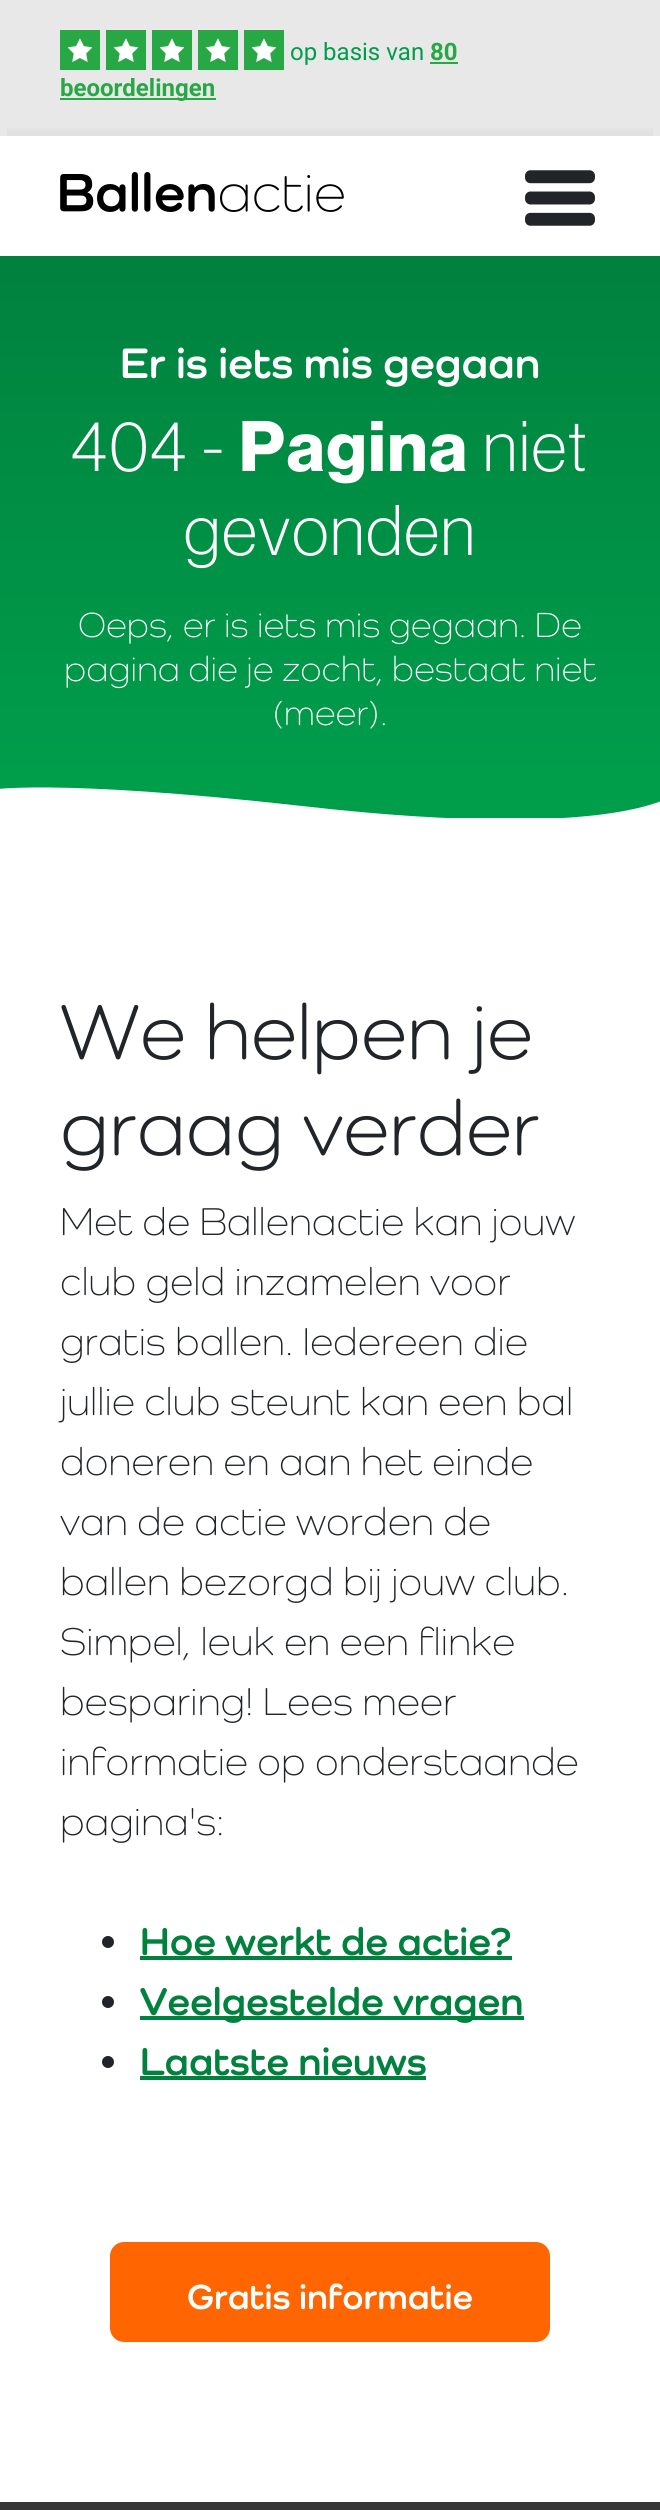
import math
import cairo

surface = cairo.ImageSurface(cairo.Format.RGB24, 660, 2510)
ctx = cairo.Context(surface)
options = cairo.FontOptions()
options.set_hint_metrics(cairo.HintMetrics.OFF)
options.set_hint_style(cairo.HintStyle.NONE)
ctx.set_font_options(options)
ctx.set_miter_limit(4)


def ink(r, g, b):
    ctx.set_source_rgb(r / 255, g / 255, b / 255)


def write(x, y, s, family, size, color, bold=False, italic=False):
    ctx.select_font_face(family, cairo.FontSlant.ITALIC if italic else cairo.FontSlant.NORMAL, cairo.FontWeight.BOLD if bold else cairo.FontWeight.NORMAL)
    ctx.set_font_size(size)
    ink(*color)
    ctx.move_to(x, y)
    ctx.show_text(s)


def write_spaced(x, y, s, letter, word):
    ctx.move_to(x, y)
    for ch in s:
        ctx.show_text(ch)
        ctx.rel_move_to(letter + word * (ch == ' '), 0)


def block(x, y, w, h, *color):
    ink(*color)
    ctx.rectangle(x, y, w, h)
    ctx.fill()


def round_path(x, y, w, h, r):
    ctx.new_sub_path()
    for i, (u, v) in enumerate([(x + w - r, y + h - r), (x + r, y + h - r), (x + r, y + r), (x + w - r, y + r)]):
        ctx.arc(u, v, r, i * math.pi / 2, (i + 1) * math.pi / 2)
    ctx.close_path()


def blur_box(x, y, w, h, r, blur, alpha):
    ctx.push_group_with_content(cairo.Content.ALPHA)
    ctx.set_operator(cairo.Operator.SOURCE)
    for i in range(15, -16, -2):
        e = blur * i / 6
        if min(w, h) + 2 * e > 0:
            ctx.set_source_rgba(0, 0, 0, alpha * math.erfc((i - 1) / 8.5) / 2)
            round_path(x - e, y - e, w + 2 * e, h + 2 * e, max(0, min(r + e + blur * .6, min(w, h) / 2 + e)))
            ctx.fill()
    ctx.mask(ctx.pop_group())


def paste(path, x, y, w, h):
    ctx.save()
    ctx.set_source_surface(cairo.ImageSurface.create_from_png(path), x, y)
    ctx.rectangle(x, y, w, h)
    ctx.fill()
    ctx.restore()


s1 = dict(family="Roboto", size=24, color=(0, 157, 75))
s2 = dict(family="Roboto", size=24, color=(40, 167, 69), bold=True)
s3 = dict(family="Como", size=44, color=(255, 255, 255), bold=True)
s4 = dict(family="Como Light", size=36, color=(255, 255, 255))
s5 = dict(family="Como", size=80, color=(33, 37, 41))
s6 = dict(family="Como Light", size=40, color=(33, 37, 41))
s7 = dict(family="Como", size=40, color=(0, 129, 62), bold=True)
s8 = dict(family="Como", size=36, color=(255, 255, 255), bold=True)

ink(255, 255, 255)
ctx.paint()
block(0, 0, 660, 136, 232, 232, 232)
block(60, 30, 40, 40, 40, 167, 69)
paste("pic1.png", 67, 38, 26, 24)
block(106, 30, 40, 40, 40, 167, 69)
paste("pic1.png", 113, 38, 26, 24)
block(152, 30, 40, 40, 40, 167, 69)
paste("pic1.png", 159, 38, 26, 24)
block(198, 30, 40, 40, 40, 167, 69)
paste("pic1.png", 205, 38, 26, 24)
block(244, 30, 40, 40, 40, 167, 69)
paste("pic1.png", 251, 38, 26, 24)
write(290, 60, "op basis van", **s1)
write(430, 60, "80", **s2)
block(430, 62, 28, 2, 40, 167, 69)
block(60, 98, 156, 2, 40, 167, 69)
write(60, 96, "beoordelingen", **s2)
ctx.save()
ctx.rectangle(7, 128, 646, 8)
ctx.clip()
ink(0, 0, 0)
blur_box(0, 160, 660, 120, 0, 25, 0.2)
ctx.restore()
paste("pic2.png", 60, 172, 284, 40)
paste("pic3.png", 525, 170, 70, 56)
gradient = cairo.LinearGradient(330, 774, 330, 256)
gradient.add_color_stop_rgba(0, 0, 0.616, 0.294, 1)
gradient.add_color_stop_rgba(1, 0, 0.506, 0.243, 1)
ctx.set_source(gradient)
ctx.rectangle(0, 256, 660, 516)
ctx.fill()
write(120, 378, "Er is iets mis gegaan", **s3)
ctx.select_font_face("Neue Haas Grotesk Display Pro")
ctx.set_font_size(70)
write_spaced(71, 471, "404 -", 2, 0)
ctx.select_font_face("Neue Haas Grotesk Display Pro", cairo.FontSlant.NORMAL, cairo.FontWeight.BOLD)
write_spaced(239, 471, "Pagina", 2, 0)
ctx.select_font_face("Neue Haas Grotesk Display Pro")
write_spaced(483, 471, "niet", 2, 0)
write_spaced(184, 555, "gevonden", 2, 0)
write(78, 637, "Oeps, er is iets mis gegaan. De", **s4)
write(64, 681, "pagina die je zocht, bestaat niet", **s4)
write(272, 725, "(meer).", **s4)
ctx.save()
ctx.rectangle(0, 772, 660, 46)
ctx.clip()
ink(0, 157, 75)
ctx.set_fill_rule(cairo.FillRule.EVEN_ODD)
ctx.new_path()
ctx.move_to(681, 790)
ctx.curve_to(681, 790, 636, 844, 302, 806)
ctx.curve_to(51, 778, -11, 790, -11, 790)
ctx.line_to(-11, 772)
ctx.line_to(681, 772)
ctx.close_path()
ctx.fill()
ctx.restore()
write(60, 1059, "We helpen je", **s5)
write(60, 1155, "graag verder", **s5)
write(60, 1235, "Met de Ballenactie kan jouw", **s6)
write(60, 1295, "club geld inzamelen voor", **s6)
write(60, 1355, "gratis ballen. Iedereen die", **s6)
write(60, 1415, "jullie club steunt kan een bal", **s6)
write(60, 1475, "doneren en aan het einde", **s6)
write(60, 1535, "van de actie worden de", **s6)
write(60, 1595, "ballen bezorgd bij jouw club.", **s6)
write(60, 1655, "Simpel, leuk en een flinke", **s6)
write(60, 1715, "besparing! Lees meer", **s6)
write(60, 1775, "informatie op onderstaande", **s6)
write(60, 1835, "pagina's:", **s6)
ctx.new_path()
ctx.arc(108, 1942, 6, 0, 2 * math.pi)
ctx.fill()
write(140, 1955, "Hoe werkt de actie?", **s7)
block(140, 1956, 372, 4, 0, 129, 62)
ink(33, 37, 41)
ctx.new_path()
ctx.arc(108, 2002, 6, 0, 2 * math.pi)
ctx.fill()
block(140, 2016, 384, 4, 0, 129, 62)
write(140, 2015, "Veelgestelde vragen", **s7)
ink(33, 37, 41)
ctx.new_path()
ctx.arc(108, 2062, 6, 0, 2 * math.pi)
ctx.fill()
write(140, 2075, "Laatste nieuws", **s7)
block(140, 2076, 286, 4, 0, 129, 62)
ink(255, 102, 1)
round_path(110, 2242, 440, 100, 14)
ctx.fill()
write(187, 2309, "Gratis informatie", **s8)
block(0, 2502, 660, 8, 55, 55, 55)
surface.write_to_png("screenshot.png")
